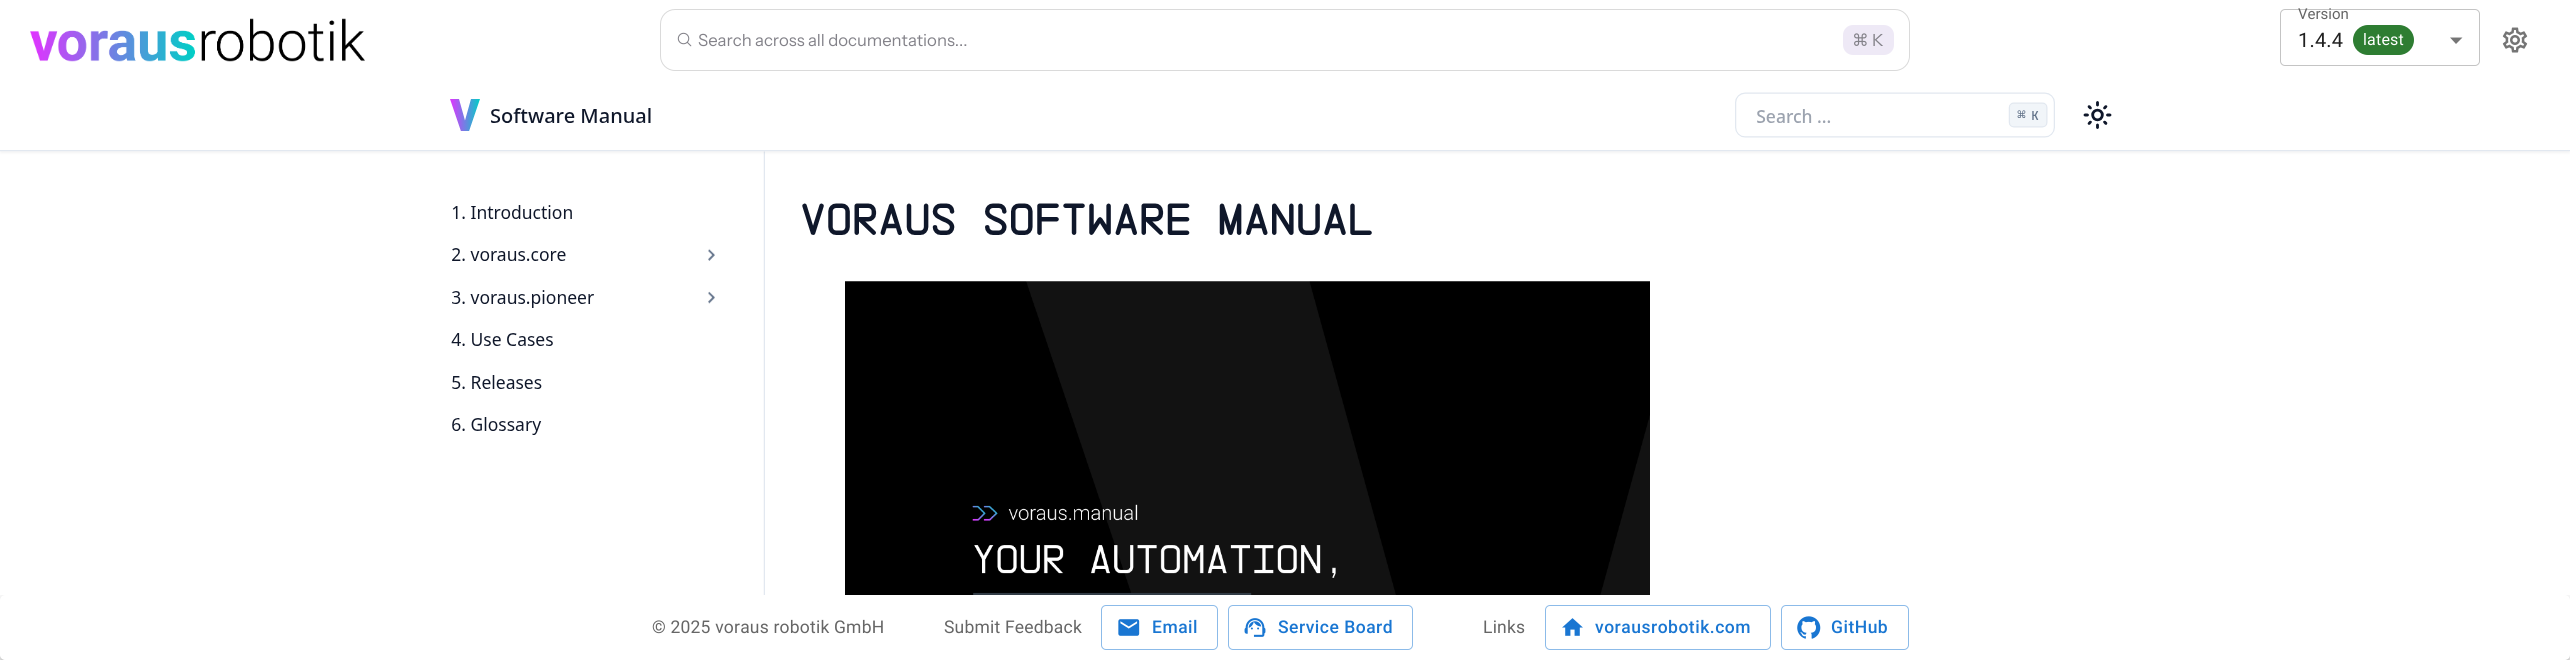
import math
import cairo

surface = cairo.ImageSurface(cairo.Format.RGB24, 2570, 660)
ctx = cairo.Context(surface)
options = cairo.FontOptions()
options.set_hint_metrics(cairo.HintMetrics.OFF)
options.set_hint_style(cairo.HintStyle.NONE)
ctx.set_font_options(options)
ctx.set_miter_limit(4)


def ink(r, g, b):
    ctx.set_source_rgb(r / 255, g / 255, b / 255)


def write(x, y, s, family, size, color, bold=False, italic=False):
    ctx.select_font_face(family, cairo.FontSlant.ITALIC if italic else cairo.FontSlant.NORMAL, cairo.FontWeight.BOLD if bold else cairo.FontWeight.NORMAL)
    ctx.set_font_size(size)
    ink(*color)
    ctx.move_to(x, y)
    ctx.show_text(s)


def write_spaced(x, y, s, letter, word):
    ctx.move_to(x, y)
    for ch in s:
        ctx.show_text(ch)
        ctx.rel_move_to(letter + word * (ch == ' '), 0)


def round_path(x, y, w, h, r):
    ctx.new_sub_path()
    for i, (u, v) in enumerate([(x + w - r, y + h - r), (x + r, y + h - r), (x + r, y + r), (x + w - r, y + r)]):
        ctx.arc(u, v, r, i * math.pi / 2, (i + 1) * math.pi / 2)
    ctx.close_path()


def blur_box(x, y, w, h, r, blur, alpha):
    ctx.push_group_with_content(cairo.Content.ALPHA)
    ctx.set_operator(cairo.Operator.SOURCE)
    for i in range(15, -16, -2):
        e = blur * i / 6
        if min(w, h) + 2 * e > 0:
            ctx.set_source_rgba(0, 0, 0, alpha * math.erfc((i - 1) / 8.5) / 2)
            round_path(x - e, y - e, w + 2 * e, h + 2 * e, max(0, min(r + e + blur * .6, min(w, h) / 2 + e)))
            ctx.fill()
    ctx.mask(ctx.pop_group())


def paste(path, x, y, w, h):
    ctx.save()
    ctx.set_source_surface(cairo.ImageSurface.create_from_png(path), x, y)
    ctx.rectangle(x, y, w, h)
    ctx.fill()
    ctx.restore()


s1 = dict(family="Instrument Sans", size=16.7, color=(131, 130, 137))
s2 = dict(family="DejaVu Sans", size=16.7, color=(131, 130, 137))
s3 = dict(family="Roboto", size=15, color=(102, 102, 102))

ink(255, 255, 255)
ctx.paint()
paste("pic1.png", 30, 18, 335, 44)
round_path(660.5, 9.5, 1249, 61, 14.5)
ink(218, 218, 218)
ctx.set_line_width(1)
ctx.stroke()
paste("pic2.png", 677, 32, 15, 15)
write(698, 46, "Search across all documentations...", **s1)
ink(238, 233, 246)
round_path(1843, 25, 51, 30, 10)
ctx.fill()
write(1852, 46, "⌘", **s2)
write(1872, 46, "K", **s1)
ink(46, 125, 50)
round_path(2353, 25, 61, 30, 15)
ctx.fill()
ink(117, 117, 117)
ctx.new_path()
ctx.move_to(2450, 37.5)
ctx.line_to(2456, 44)
ctx.line_to(2462.5, 37.5)
ctx.close_path()
ctx.fill()
round_path(2280.5, 9.5, 199, 56, 4.5)
ink(196, 196, 196)
ctx.stroke()
write(2298, 19, "Version", **s3)
ctx.set_font_size(20)
ink(33, 33, 33)
write_spaced(2298, 47, "1.4.4", 0.2, 0)
ctx.set_font_size(16)
ink(255, 255, 255)
write_spaced(2363, 45, "latest", 0.2, 0)
paste("pic3.png", 2502, 27, 26, 26)
ink(0, 0, 0)
blur_box(0, 596, 2570, 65, 5, 6, 0.12)
blur_box(0, 600, 2570, 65, 5, 3, 0.14)
blur_box(1, 599, 2568, 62, 4, 2.5, 0.2)
paste("pic4.png", 0, 92, 2570, 503)
ink(255, 255, 255)
round_path(0, 595, 2570, 65, 5)
ctx.fill()
ctx.set_font_size(17.5)
ink(102, 102, 102)
write_spaced(652, 633, "© 2025 voraus robotik GmbH", 0.2, 0)
write_spaced(944, 633, "Submit Feedback", 0.2, 0)
round_path(1101.5, 605.5, 116, 44, 4.5)
ink(140, 187, 233)
ctx.stroke()
paste("pic5.png", 1118, 619, 22, 17)
ctx.select_font_face("Roboto Medium")
ink(25, 118, 210)
write_spaced(1152, 633, "Email", 0.5, 0)
round_path(1228.5, 605.5, 184, 44, 4.5)
ink(140, 187, 233)
ctx.stroke()
paste("pic6.png", 1244, 618, 22, 19)
ink(25, 118, 210)
write_spaced(1278, 633, "Service Board", 0.5, 0)
ctx.select_font_face("Roboto")
ink(102, 102, 102)
write_spaced(1483, 633, "Links", 0.2, 0)
round_path(1545.5, 605.5, 225, 44, 4.5)
ink(140, 187, 233)
ctx.stroke()
paste("pic7.png", 1562, 618, 21, 18)
ctx.select_font_face("Roboto Medium")
ink(25, 118, 210)
write_spaced(1595, 633, "vorausrobotik.com", 0.5, 0)
round_path(1781.5, 605.5, 127, 44, 4.5)
ink(140, 187, 233)
ctx.stroke()
paste("pic8.png", 1797, 616, 24, 23)
ink(25, 118, 210)
write_spaced(1831, 633, "GitHub", 0.5, 0)
surface.write_to_png("screenshot.png")
